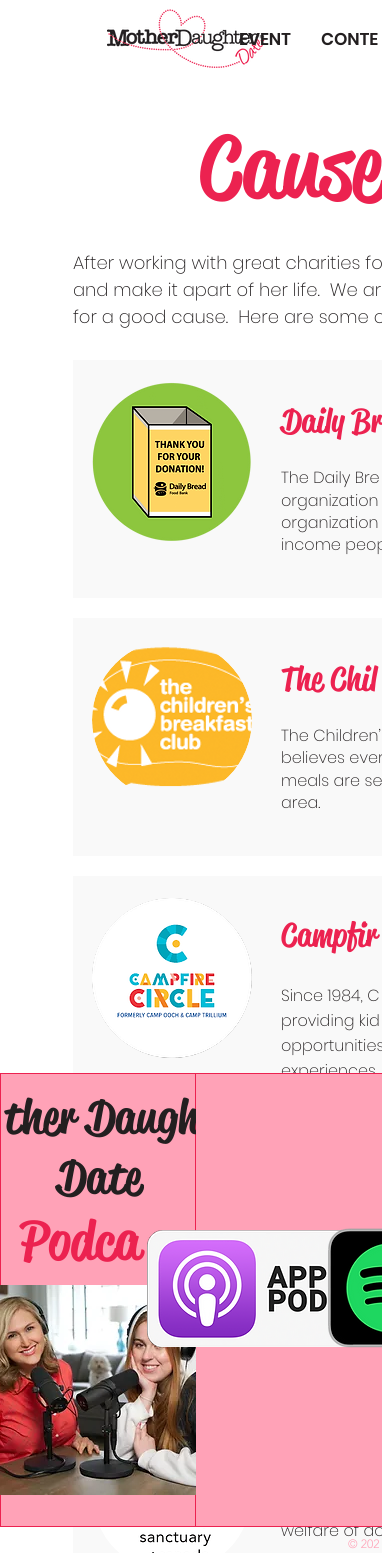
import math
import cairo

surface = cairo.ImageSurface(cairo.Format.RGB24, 382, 1553)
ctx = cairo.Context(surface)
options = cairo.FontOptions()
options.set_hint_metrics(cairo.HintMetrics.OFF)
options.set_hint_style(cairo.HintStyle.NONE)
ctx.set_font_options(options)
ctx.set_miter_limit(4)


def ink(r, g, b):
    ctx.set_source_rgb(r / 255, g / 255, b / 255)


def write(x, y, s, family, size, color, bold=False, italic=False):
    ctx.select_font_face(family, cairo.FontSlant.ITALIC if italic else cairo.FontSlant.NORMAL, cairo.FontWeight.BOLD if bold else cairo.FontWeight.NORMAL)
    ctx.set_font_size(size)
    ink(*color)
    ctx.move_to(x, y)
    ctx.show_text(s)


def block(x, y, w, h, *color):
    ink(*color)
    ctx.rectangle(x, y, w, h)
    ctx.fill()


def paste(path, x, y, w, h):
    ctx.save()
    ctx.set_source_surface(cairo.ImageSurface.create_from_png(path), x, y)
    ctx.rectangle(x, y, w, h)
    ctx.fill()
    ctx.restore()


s1 = dict(family="Poppins SemiBold", size=17, color=(35, 31, 32))
s2 = dict(family="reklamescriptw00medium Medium", size=88, color=(236, 34, 80))
s3 = dict(family="Poppins ExtraLight", size=18, color=(35, 31, 32))
s4 = dict(family="reklamescriptw00medium Medium", size=33, color=(236, 34, 80))
s5 = dict(family="Poppins ExtraLight", size=16, color=(35, 31, 32))
s6 = dict(family="reklamescriptw00medium Medium", size=47, color=(35, 31, 32))
s7 = dict(family="reklamescriptw00medium Medium", size=54, color=(236, 34, 80))
s8 = dict(family="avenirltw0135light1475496 Light", size=12, color=(255, 162, 183))

ink(255, 255, 255)
ctx.paint()
paste("pic1.png", 107, 9, 158, 59)
write(239, 45, "EVENT", **s1)
write(321, 45, "CONTE", **s1)
write(199, 197, "Cause", **s2)
write(73, 269, "After working with great charities fo", **s3)
write(73, 296, "and make it apart of her life.  We ar", **s3)
write(73, 323, "for a good cause.  Here are some o", **s3)
block(73, 360, 309, 238, 249, 249, 249)
paste("pic2.png", 92, 382, 159, 159)
write(281, 432, "Daily Br", **s4)
write(281, 483, "The Daily Bre", **s5)
write(281, 506, "organization", **s5)
write(281, 528, "organization", **s5)
write(281, 550, "income peop", **s5)
block(73, 618, 309, 238, 249, 249, 249)
paste("pic3.png", 92, 647, 160, 140)
write(281, 690, "The Chil", **s4)
write(281, 741, "The Children’", **s5)
write(281, 763, "believes ever", **s5)
write(281, 786, "meals are se", **s5)
write(281, 808, "area.", **s5)
block(73, 876, 309, 197, 249, 249, 249)
paste("pic4.png", 92, 898, 160, 160)
write(281, 946, "Campfir", **s4)
write(281, 1001, "Since 1984, C", **s5)
write(281, 1026, "providing kid", **s5)
write(281, 1051, "opportunities", **s5)
write(281, 1076, "experiences", **s5)
block(73, 1527, 309, 26, 249, 249, 249)
paste("pic5.png", 100, 1527, 144, 26)
write(281, 1536, "welfare of do", **s5)
block(0, 1073, 382, 454, 236, 34, 80)
block(1, 1074, 194, 452, 255, 162, 183)
write(4, 1133, "ther Daugh", **s6)
write(57, 1193, "Date", **s6)
write(20, 1259, "Podca", **s7)
paste("pic6.png", 0, 1285, 196, 210)
block(196, 1074, 186, 452, 255, 162, 183)
paste("pic7.png", 147, 1230, 235, 117)
paste("pic8.png", 328, 1228, 54, 120)
write(348, 1548, "© 202", **s8)
surface.write_to_png("screenshot.png")
